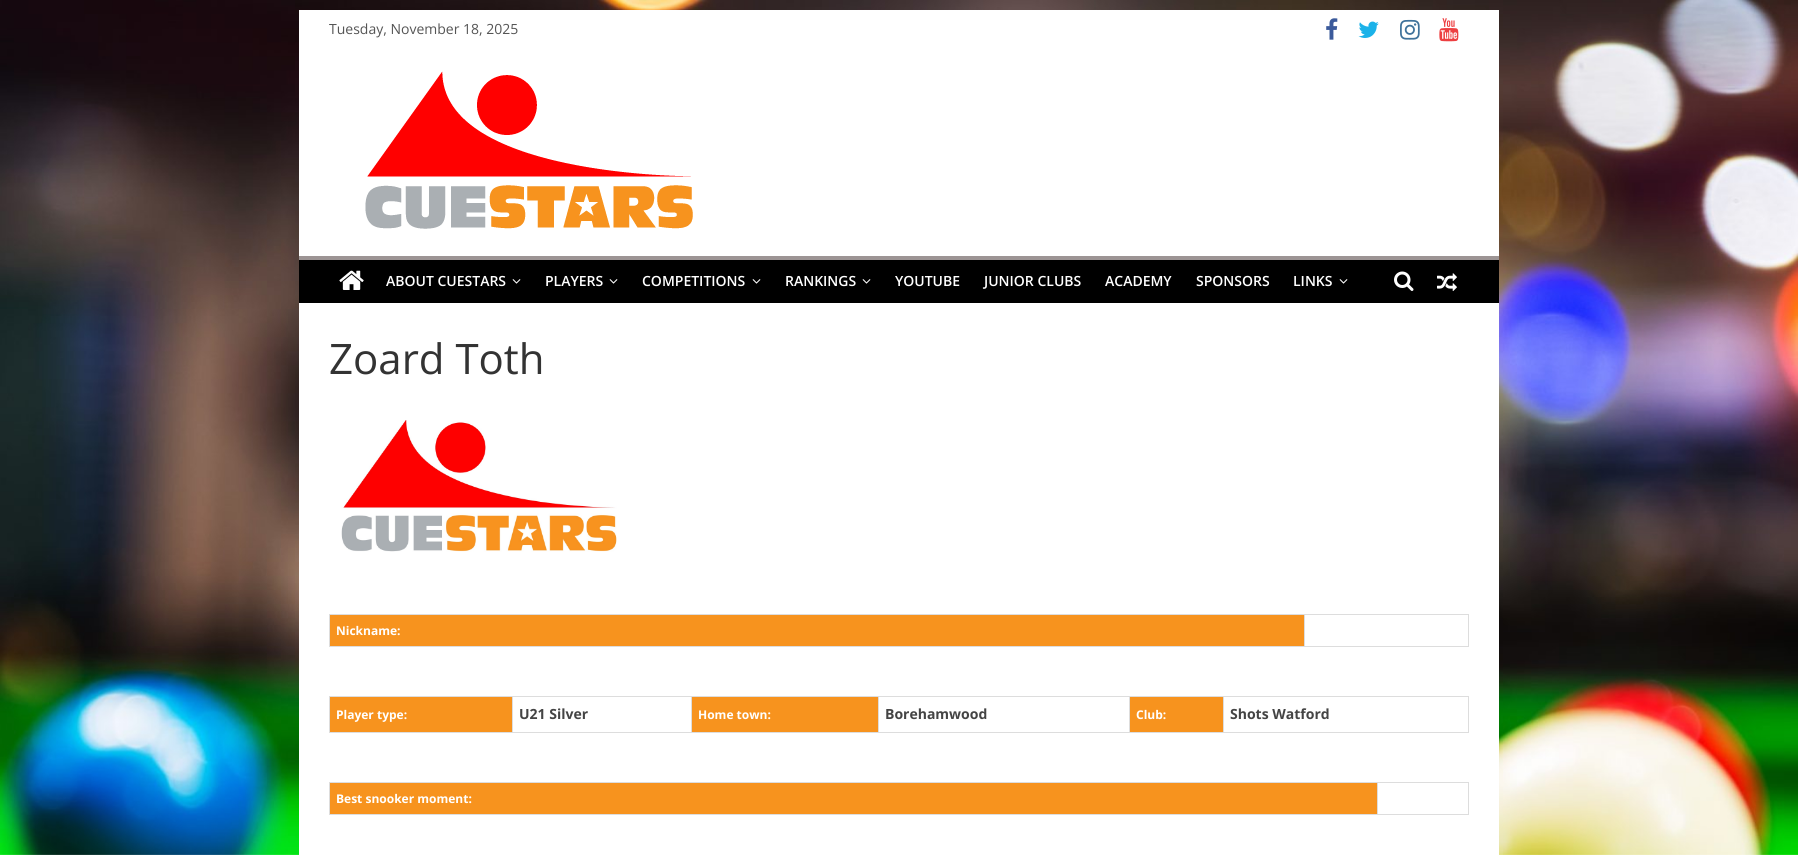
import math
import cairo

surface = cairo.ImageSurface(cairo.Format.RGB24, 1798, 855)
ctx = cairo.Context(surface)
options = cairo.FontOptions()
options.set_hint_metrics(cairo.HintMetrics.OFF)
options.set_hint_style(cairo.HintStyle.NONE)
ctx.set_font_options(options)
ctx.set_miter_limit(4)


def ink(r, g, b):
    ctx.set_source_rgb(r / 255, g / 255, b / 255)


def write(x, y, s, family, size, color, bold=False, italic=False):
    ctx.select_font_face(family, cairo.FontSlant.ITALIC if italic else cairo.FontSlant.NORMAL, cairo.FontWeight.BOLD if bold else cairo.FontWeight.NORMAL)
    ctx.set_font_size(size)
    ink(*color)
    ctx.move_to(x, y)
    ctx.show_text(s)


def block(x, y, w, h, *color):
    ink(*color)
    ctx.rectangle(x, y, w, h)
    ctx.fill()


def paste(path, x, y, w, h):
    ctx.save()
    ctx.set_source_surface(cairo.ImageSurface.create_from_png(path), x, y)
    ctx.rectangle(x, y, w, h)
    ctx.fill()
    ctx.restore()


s1 = dict(family="Open Sans", size=14, color=(85, 85, 85))
s2 = dict(family="Open Sans SemiBold", size=14, color=(255, 255, 255))
s3 = dict(family="Open Sans", size=42, color=(51, 51, 51))
s4 = dict(family="Open Sans", size=12, color=(255, 255, 255), bold=True)
s5 = dict(family="Open Sans", size=14, color=(68, 68, 68), bold=True)

ink(255, 255, 255)
ctx.paint()
paste("pic1.png", 0, 0, 1798, 855)
block(299, 10, 1200, 246, 255, 255, 255)
write(329, 34, "Tuesday, November 18, 2025", **s1)
paste("pic2.png", 1326, 18, 12, 22)
paste("pic3.png", 1358, 21, 21, 17)
paste("pic4.png", 1400, 19, 20, 21)
paste("pic5.png", 1439, 18, 20, 24)
paste("pic6.png", 365, 71, 328, 158)
block(299, 260, 1200, 43, 0, 0, 0)
block(299, 256, 1200, 4, 156, 148, 148)
paste("pic7.png", 339, 270, 25, 20)
write(386, 286, "ABOUT CUESTARS", **s2)
paste("pic8.png", 512, 279, 9, 5)
write(545, 286, "PLAYERS", **s2)
paste("pic8.png", 609, 279, 9, 5)
write(642, 286, "COMPETITIONS", **s2)
paste("pic8.png", 752, 279, 9, 5)
write(785, 286, "RANKINGS", **s2)
paste("pic8.png", 862, 279, 9, 5)
write(895, 286, "YOUTUBE", **s2)
write(984, 286, "JUNIOR CLUBS", **s2)
write(1105, 286, "ACADEMY", **s2)
write(1196, 286, "SPONSORS", **s2)
write(1293, 286, "LINKS", **s2)
paste("pic8.png", 1339, 279, 9, 5)
paste("pic9.png", 1394, 271, 20, 20)
paste("pic10.png", 1437, 273, 20, 18)
block(299, 303, 1200, 552, 255, 255, 255)
write(329, 374, "Zoard Toth", **s3)
paste("pic11.png", 341, 420, 276, 132)
block(330, 615, 974, 31, 247, 147, 30)
block(1304, 614, 165, 1, 221, 221, 221)
block(1468, 614, 1, 33, 221, 221, 221)
block(1304, 646, 165, 1, 221, 221, 221)
block(1304, 614, 1, 33, 221, 221, 221)
block(329, 614, 976, 1, 221, 221, 221)
block(329, 646, 976, 1, 221, 221, 221)
block(329, 614, 1, 33, 221, 221, 221)
write(336, 635, "Nickname:", **s4)
block(330, 697, 182, 35, 247, 147, 30)
block(1223, 696, 246, 1, 221, 221, 221)
block(1468, 696, 1, 37, 221, 221, 221)
block(1223, 732, 246, 1, 221, 221, 221)
block(1223, 696, 1, 37, 221, 221, 221)
block(1129, 696, 95, 1, 221, 221, 221)
block(1129, 732, 95, 1, 221, 221, 221)
block(1129, 696, 1, 37, 221, 221, 221)
block(878, 696, 252, 1, 221, 221, 221)
block(878, 732, 252, 1, 221, 221, 221)
block(878, 696, 1, 37, 221, 221, 221)
block(691, 696, 188, 1, 221, 221, 221)
block(691, 732, 188, 1, 221, 221, 221)
block(691, 696, 1, 37, 221, 221, 221)
block(512, 696, 180, 1, 221, 221, 221)
block(512, 732, 180, 1, 221, 221, 221)
block(512, 696, 1, 37, 221, 221, 221)
block(329, 696, 184, 1, 221, 221, 221)
block(329, 732, 184, 1, 221, 221, 221)
block(329, 696, 1, 37, 221, 221, 221)
write(336, 719, "Player type:", **s4)
write(519, 719, "U21 Silver", **s5)
block(692, 697, 186, 35, 247, 147, 30)
write(698, 719, "Home town:", **s4)
write(885, 719, "Borehamwood", **s5)
block(1130, 697, 93, 35, 247, 147, 30)
write(1136, 719, "Club:", **s4)
write(1230, 719, "Shots Watford", **s5)
block(330, 783, 1047, 31, 247, 147, 30)
block(1377, 782, 92, 1, 221, 221, 221)
block(1468, 782, 1, 33, 221, 221, 221)
block(1377, 814, 92, 1, 221, 221, 221)
block(1377, 782, 1, 33, 221, 221, 221)
block(329, 782, 1049, 1, 221, 221, 221)
block(329, 814, 1049, 1, 221, 221, 221)
block(329, 782, 1, 33, 221, 221, 221)
write(336, 803, "Best snooker moment:", **s4)
surface.write_to_png("screenshot.png")
